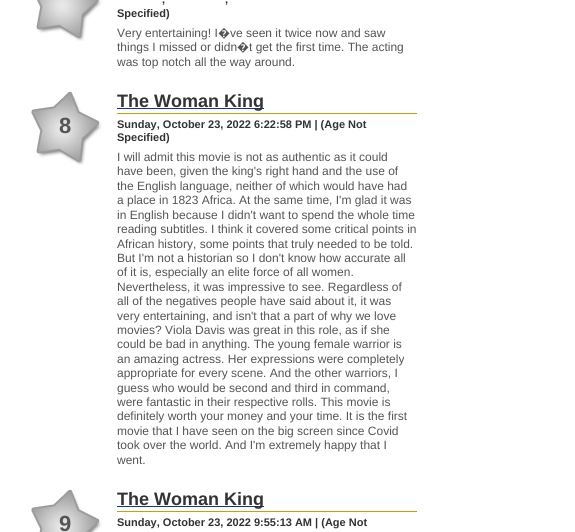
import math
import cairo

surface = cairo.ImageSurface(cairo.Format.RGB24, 575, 532)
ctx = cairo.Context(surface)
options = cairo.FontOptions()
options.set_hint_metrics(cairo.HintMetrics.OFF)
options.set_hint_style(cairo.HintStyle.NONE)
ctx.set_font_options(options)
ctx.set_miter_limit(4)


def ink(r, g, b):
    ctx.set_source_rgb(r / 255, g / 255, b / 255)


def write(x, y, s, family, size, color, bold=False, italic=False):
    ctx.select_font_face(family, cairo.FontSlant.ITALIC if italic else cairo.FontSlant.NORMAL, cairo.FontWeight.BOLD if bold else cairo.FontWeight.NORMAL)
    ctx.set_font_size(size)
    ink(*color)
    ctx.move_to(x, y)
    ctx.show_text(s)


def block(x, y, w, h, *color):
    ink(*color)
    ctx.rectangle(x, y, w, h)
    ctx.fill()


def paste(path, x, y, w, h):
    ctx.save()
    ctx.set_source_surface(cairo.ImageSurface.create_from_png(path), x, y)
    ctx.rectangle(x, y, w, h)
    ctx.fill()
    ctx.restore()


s1 = dict(family="Liberation Sans", size=11, color=(51, 51, 51), bold=True)
s2 = dict(family="Liberation Sans", size=12, color=(85, 85, 85))
s3 = dict(family="Noto Sans", size=12, color=(85, 85, 85))
s4 = dict(family="Liberation Sans", size=22, color=(85, 85, 85), bold=True)
s5 = dict(family="Liberation Sans", size=18, color=(51, 51, 51), bold=True)

ink(255, 255, 255)
ctx.paint()
paste("pic1.png", 36, 0, 66, 41)
write(162, 3, ",", **s1)
write(225, 3, ",", **s1)
write(117, 17, "Specified)", **s1)
write(117, 37, "Very entertaining! I", **s2)
write(218, 37, "�", **s3)
write(230, 37, "ve seen it twice now and saw", **s2)
write(117, 51, "things I missed or didn", **s2)
write(237, 51, "�", **s3)
write(249, 51, "t get the first time. The acting", **s2)
write(117, 66, "was top notch all the way around.", **s2)
paste("pic2.png", 31, 91, 71, 74)
write(59, 133, "8", **s4)
block(117, 113, 300, 1, 229, 148, 0)
block(117, 108, 147, 1, 17, 51, 153)
write(117, 107, "The Woman King", **s5)
write(117, 128, "Sunday, October 23, 2022 6:22:58 PM | (Age Not", **s1)
write(117, 141, "Specified)", **s1)
write(117, 161, "I will admit this movie is not as authentic as it could", **s2)
write(117, 175, "have been, given the king's right hand and the use of", **s2)
write(117, 190, "the English language, neither of which would have had", **s2)
write(117, 204, "a place in 1823 Africa. At the same time, I'm glad it was", **s2)
write(117, 219, "in English because I didn't want to spend the whole time", **s2)
write(117, 233, "reading subtitles. I think it covered some critical points in", **s2)
write(117, 248, "African history, some points that truly needed to be told.", **s2)
write(117, 262, "But I'm not a historian so I don't know how accurate all", **s2)
write(117, 276, "of it is, especially an elite force of all women.", **s2)
write(117, 291, "Nevertheless, it was impressive to see. Regardless of", **s2)
write(117, 305, "all of the negatives people have said about it, it was", **s2)
write(117, 320, "very entertaining, and isn't that a part of why we love", **s2)
write(117, 334, "movies? Viola Davis was great in this role, as if she", **s2)
write(117, 348, "could be bad in anything. The young female warrior is", **s2)
write(117, 363, "an amazing actress. Her expressions were completely", **s2)
write(117, 377, "appropriate for every scene. And the other warriors, I", **s2)
write(117, 392, "guess who would be second and third in command,", **s2)
write(117, 406, "were fantastic in their respective rolls. This movie is", **s2)
write(117, 420, "definitely worth your money and your time. It is the first", **s2)
write(117, 435, "movie that I have seen on the big screen since Covid", **s2)
write(117, 449, "took over the world. And I'm extremely happy that I", **s2)
write(117, 464, "went.", **s2)
paste("pic3.png", 31, 489, 71, 43)
write(59, 531, "9", **s4)
block(117, 511, 300, 1, 229, 148, 0)
block(117, 506, 147, 1, 17, 51, 153)
write(117, 505, "The Woman King", **s5)
write(117, 526, "Sunday, October 23, 2022 9:55:13 AM | (Age Not", **s1)
surface.write_to_png("screenshot.png")
